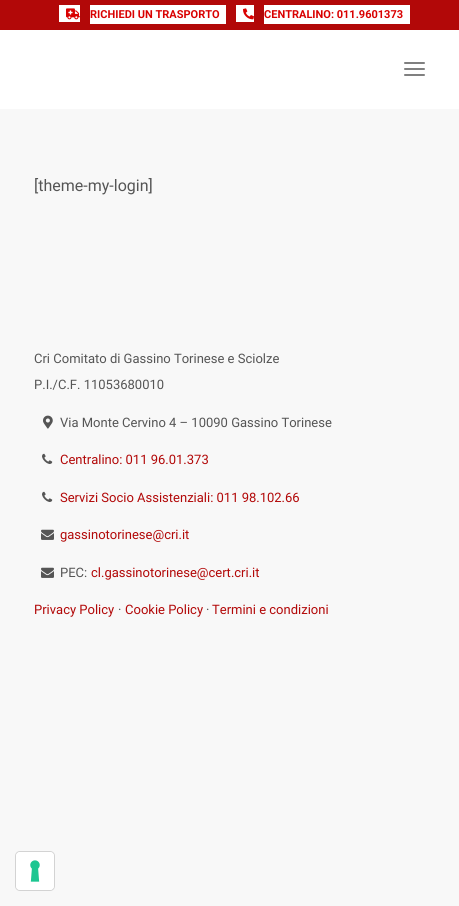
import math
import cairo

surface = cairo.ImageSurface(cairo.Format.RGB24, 459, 906)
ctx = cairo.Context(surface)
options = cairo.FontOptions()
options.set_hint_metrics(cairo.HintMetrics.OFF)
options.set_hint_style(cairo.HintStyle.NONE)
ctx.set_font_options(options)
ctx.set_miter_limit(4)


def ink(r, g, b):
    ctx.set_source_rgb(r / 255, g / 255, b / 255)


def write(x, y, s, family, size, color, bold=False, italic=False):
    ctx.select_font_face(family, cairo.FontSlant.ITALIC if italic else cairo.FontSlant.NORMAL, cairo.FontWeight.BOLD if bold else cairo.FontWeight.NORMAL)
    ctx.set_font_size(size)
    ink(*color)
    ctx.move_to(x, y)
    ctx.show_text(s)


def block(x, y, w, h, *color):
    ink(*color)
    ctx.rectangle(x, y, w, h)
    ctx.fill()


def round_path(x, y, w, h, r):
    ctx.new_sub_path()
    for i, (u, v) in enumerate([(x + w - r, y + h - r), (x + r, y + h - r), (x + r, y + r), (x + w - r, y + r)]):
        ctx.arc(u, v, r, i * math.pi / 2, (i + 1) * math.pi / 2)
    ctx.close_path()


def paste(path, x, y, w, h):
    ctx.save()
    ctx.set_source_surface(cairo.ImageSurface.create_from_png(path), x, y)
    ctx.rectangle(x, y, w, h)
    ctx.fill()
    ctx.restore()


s1 = dict(family="Roboto", size=11, color=(217, 0, 0), bold=True)
s2 = dict(family="Roboto", size=16, color=(85, 85, 85))
s3 = dict(family="Roboto", size=13, color=(85, 85, 85))
s4 = dict(family="Roboto", size=13, color=(178, 8, 8))

ink(248, 248, 248)
ctx.paint()
block(0, 0, 459, 30, 178, 8, 8)
block(59, 5, 21, 17, 255, 255, 255)
block(90, 5, 136, 19, 255, 255, 255)
paste("pic1.png", 66, 8, 14, 12)
write(90, 18, "RICHIEDI UN TRASPORTO", **s1)
block(236, 5, 18, 17, 255, 255, 255)
block(264, 5, 146, 19, 255, 255, 255)
paste("pic2.png", 243, 8, 11, 12)
write(264, 18, "CENTRALINO: 011.9601373", **s1)
block(0, 30, 459, 79, 255, 255, 255)
ink(128, 128, 128)
round_path(404, 68, 21, 2, 1)
ctx.fill()
round_path(404, 62, 21, 2, 1)
ctx.fill()
round_path(404, 74, 21, 2, 1)
ctx.fill()
write(34, 191, "[theme-my-login]", **s2)
write(34, 363, "Cri Comitato di Gassino Torinese e Sciolze", **s3)
write(34, 389, "P.I./C.F. 11053680010", **s3)
paste("pic3.png", 43, 415, 10, 14)
write(60, 427, "Via Monte Cervino 4 – 10090 Gassino Torinese", **s3)
paste("pic4.png", 42, 453, 11, 11)
write(60, 464, "Centralino: 011 96.01.373", **s4)
paste("pic4.png", 42, 491, 11, 11)
write(60, 502, "Servizi Socio Assistenziali: 011 98.102.66", **s4)
paste("pic5.png", 41, 529, 13, 11)
write(60, 539, "gassinotorinese@cri.it", **s4)
paste("pic5.png", 41, 567, 13, 11)
write(60, 577, "PEC:", **s3)
write(91, 577, "cl.gassinotorinese@cert.cri.it", **s4)
write(34, 614, "Privacy Policy", **s4)
write(118, 614, "·", **s3)
write(125, 614, "Cookie Policy", **s4)
write(206, 614, "·", **s3)
write(212, 614, "Termini e condizioni", **s4)
round_path(15.5, 851.5, 39, 39, 4.5)
ink(211, 211, 211)
ctx.set_line_width(1)
ctx.stroke()
ink(255, 255, 255)
round_path(16, 852, 38, 38, 4)
ctx.fill()
paste("pic6.png", 30, 860, 10, 22)
surface.write_to_png("screenshot.png")
